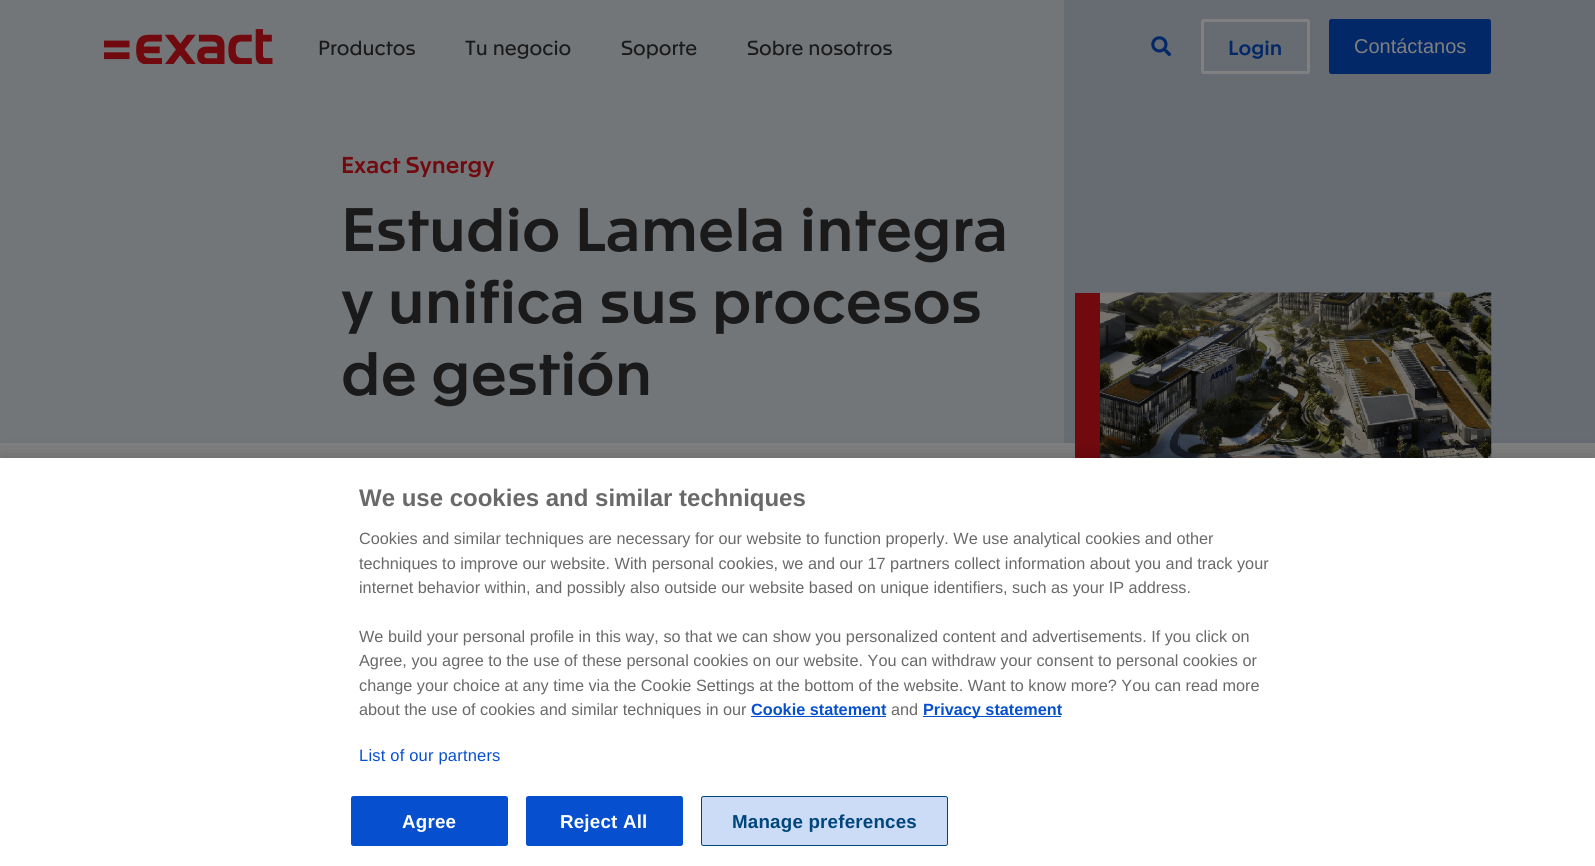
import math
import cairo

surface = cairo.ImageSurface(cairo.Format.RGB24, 1595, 866)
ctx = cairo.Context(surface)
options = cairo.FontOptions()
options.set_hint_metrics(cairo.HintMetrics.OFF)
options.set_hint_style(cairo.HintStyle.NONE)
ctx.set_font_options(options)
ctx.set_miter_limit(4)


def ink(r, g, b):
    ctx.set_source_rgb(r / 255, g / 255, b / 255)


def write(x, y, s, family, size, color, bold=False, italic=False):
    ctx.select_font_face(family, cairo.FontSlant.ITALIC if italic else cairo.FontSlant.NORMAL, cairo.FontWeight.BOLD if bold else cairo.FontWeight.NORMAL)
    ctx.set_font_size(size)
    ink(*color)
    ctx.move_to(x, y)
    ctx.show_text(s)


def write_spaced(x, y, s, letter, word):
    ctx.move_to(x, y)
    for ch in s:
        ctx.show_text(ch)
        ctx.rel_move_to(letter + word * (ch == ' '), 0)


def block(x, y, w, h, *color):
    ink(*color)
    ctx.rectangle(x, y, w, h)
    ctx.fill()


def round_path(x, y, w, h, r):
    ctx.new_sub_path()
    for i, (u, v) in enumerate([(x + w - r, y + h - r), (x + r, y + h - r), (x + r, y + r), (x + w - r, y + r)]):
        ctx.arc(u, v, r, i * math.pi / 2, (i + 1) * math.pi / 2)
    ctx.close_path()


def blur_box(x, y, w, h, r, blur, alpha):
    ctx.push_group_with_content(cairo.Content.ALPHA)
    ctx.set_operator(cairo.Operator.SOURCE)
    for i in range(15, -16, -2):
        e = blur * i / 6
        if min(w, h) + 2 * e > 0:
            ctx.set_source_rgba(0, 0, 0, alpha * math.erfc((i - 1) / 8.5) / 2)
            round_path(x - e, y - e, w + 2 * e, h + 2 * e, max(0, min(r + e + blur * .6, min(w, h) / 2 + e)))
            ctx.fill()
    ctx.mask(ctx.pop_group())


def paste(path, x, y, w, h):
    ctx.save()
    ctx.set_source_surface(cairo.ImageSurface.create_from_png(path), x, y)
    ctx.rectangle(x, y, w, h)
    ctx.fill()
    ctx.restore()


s1 = dict(family="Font", size=20, color=(26, 26, 26))
s2 = dict(family="Font Medium", size=20, color=(3, 40, 104))
s3 = dict(family="Liberation Sans", size=20, color=(128, 128, 128))
s4 = dict(family="Font Medium", size=22.5, color=(113, 10, 15))
s5 = dict(family="Font Medium", size=60, color=(26, 26, 26))
s6 = dict(family="Liberation Sans", size=24, color=(105, 105, 105), bold=True)
s7 = dict(family="Liberation Sans", size=16.25, color=(105, 105, 105))
s8 = dict(family="Liberation Sans", size=16.25, color=(6, 80, 208), bold=True)

ink(128, 128, 128)
ctx.paint()
block(0, 0, 1064, 443, 115, 118, 121)
paste("pic1.png", 104, 29, 169, 35)
write(318, 55, "Productos", **s1)
write(465, 55, "Tu negocio", **s1)
write(621, 55, "Soporte", **s1)
write(747, 55, "Sobre nosotros", **s1)
block(1064, 0, 531, 443, 102, 108, 113)
paste("pic2.png", 1151, 36, 21, 21)
round_path(1202.5, 20.5, 106, 52, 1)
ink(128, 128, 128)
ctx.set_line_width(3)
ctx.stroke()
write(1228, 55, "Login", **s2)
round_path(1329, 19, 162, 55, 2.5)
ctx.fill()
write(1354, 53, "Contáctanos", **s3)
write(341, 173, "Exact Synergy", **s4)
write(341, 251, "Estudio Lamela integra", **s5)
write(341, 323, "y unifica sus procesos", **s5)
write(341, 395, "de gestión", **s5)
block(1075, 293, 25, 165, 113, 10, 15)
paste("pic3.png", 1100, 292, 392, 166)
ink(0, 0, 0)
blur_box(0, 458, 1595, 408, 0, 11, 0.2)
block(0, 458, 1595, 408, 255, 255, 255)
write(359, 506, "We use cookies and similar techniques", **s6)
write(359, 544, "Cookies and similar techniques are necessary for our website to function properly. We use analytical cookies and other", **s7)
write(359, 569, "techniques to improve our website. With personal cookies, we and our 17 partners collect information about you and track your", **s7)
write(359, 593, "internet behavior within, and possibly also outside our website based on unique identifiers, such as your IP address.", **s7)
write(359, 642, "We build your personal profile in this way, so that we can show you personalized content and advertisements. If you click on", **s7)
write(359, 666, "Agree, you agree to the use of these personal cookies on our website. You can withdraw your consent to personal cookies or", **s7)
write(359, 691, "change your choice at any time via the Cookie Settings at the bottom of the website. Want to know more? You can read more", **s7)
write(359, 715, "about the use of cookies and similar techniques in our", **s7)
write(751, 715, "Cookie statement", **s8)
block(751, 716, 135, 1, 6, 80, 208)
write(891, 715, "and", **s7)
block(923, 716, 138, 1, 6, 80, 208)
write(923, 715, "Privacy statement", **s8)
ctx.select_font_face("Liberation Sans")
ctx.set_font_size(16.5)
write_spaced(359, 761, "List of our partners", 0.2, 0)
round_path(351.5, 796.5, 156, 49, 2)
ctx.fill_preserve()
ctx.set_line_width(1)
ctx.stroke()
ctx.select_font_face("Liberation Sans", cairo.FontSlant.NORMAL, cairo.FontWeight.BOLD)
ctx.set_font_size(18.75)
ink(255, 255, 255)
write_spaced(402, 828, "Agree", 0.2, 0)
ink(6, 80, 208)
round_path(526.5, 796.5, 156, 49, 2)
ctx.fill_preserve()
ctx.stroke()
ink(255, 255, 255)
write_spaced(560, 828, "Reject All", 0.2, 0)
ink(205, 220, 246)
round_path(701.5, 796.5, 246, 49, 2)
ctx.fill_preserve()
ink(0, 70, 123)
ctx.stroke()
write_spaced(732, 828, "Manage preferences", 0.2, 0)
surface.write_to_png("screenshot.png")
